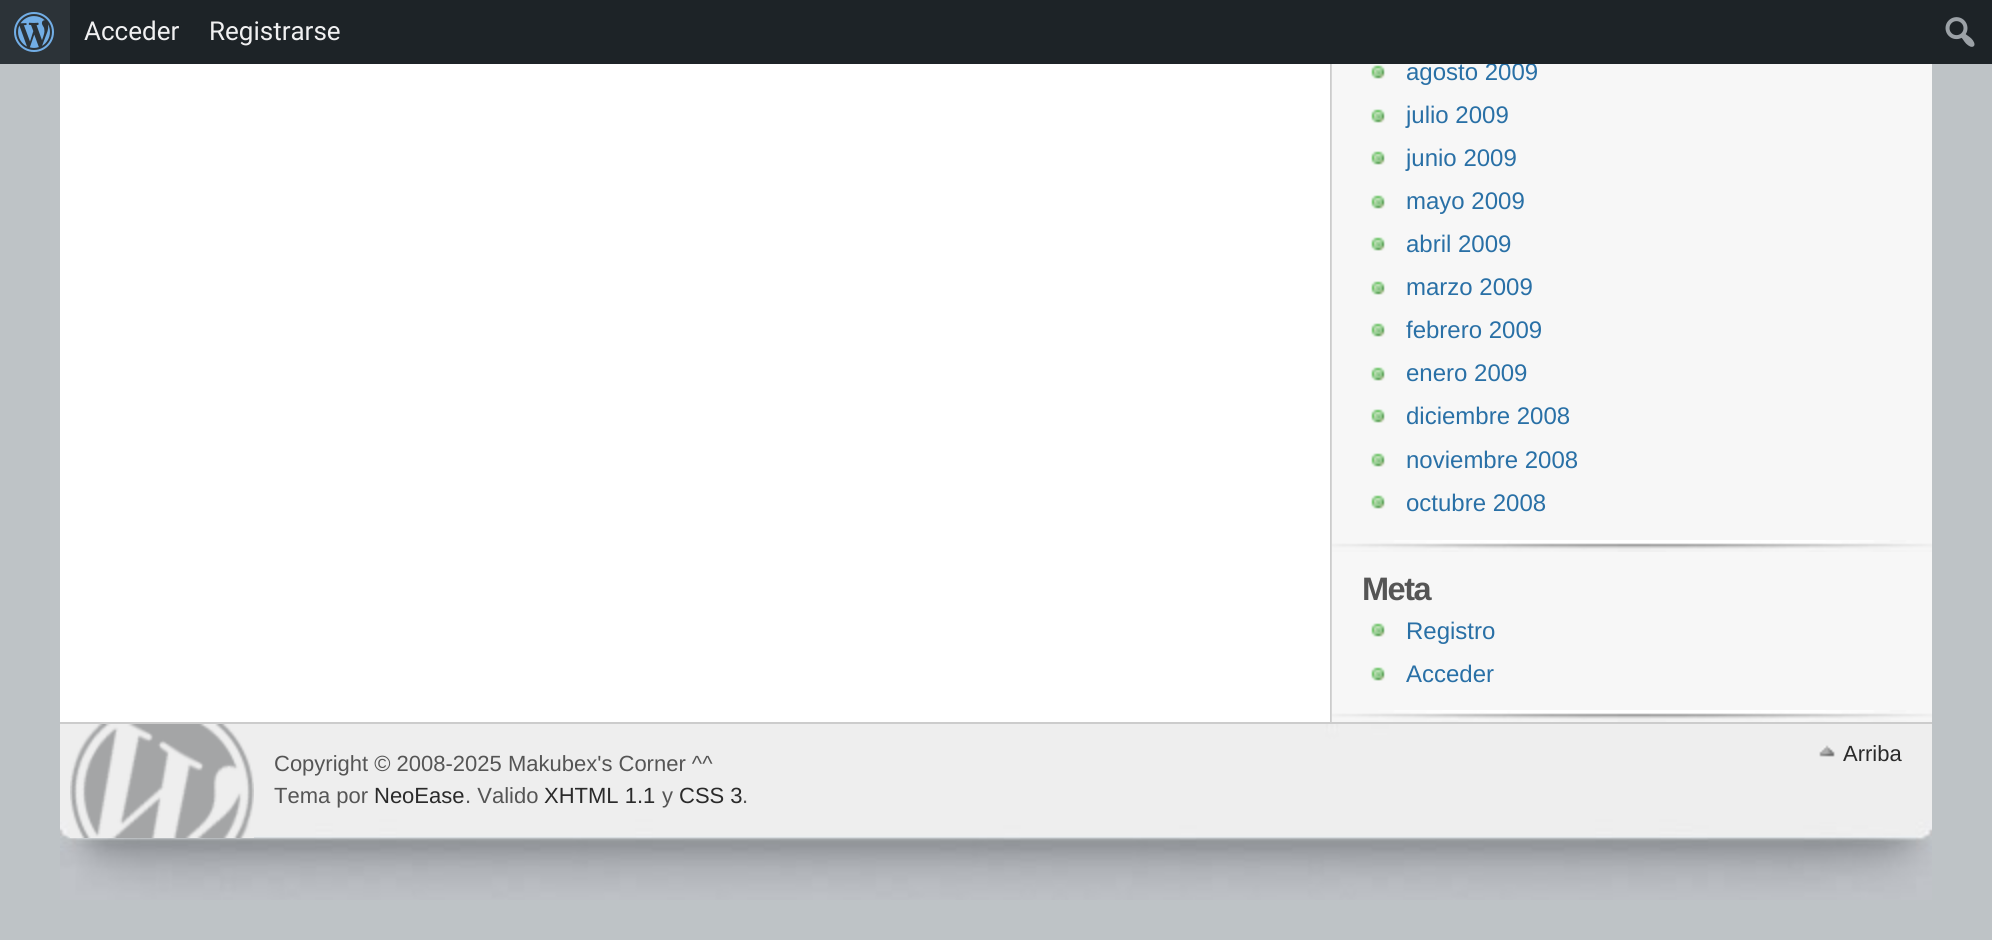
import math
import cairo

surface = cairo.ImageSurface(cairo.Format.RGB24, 1992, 940)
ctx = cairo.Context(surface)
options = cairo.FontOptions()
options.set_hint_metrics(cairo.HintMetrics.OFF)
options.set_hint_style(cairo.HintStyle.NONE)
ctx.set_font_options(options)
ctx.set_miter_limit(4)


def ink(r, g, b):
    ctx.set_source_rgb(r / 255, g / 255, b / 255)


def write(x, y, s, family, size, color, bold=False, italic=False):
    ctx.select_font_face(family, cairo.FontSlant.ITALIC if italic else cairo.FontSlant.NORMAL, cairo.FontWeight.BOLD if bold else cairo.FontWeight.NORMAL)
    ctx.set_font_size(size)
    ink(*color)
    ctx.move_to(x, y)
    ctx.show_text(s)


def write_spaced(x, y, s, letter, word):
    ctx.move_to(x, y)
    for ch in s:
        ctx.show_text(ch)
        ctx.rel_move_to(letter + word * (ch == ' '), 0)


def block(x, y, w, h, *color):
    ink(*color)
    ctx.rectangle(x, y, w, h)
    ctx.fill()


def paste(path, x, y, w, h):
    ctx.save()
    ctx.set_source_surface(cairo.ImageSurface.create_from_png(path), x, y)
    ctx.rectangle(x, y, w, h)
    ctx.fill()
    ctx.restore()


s1 = dict(family="Liberation Sans", size=24, color=(41, 112, 166))
s2 = dict(family="Roboto", size=26, color=(240, 240, 241))
s3 = dict(family="Liberation Sans", size=22, color=(85, 85, 85))
s4 = dict(family="Liberation Sans", size=22, color=(42, 42, 42))

ink(190, 195, 198)
ctx.paint()
block(1332, 64, 600, 646, 247, 247, 247)
write(1406, 80, "agosto 2009", **s1)
block(70, 0, 1922, 64, 29, 35, 39)
block(0, 0, 70, 64, 44, 51, 56)
paste("pic1.png", 14, 12, 40, 40)
write(84, 40, "Acceder", **s2)
write(209, 40, "Registrarse", **s2)
paste("pic2.png", 1945, 17, 30, 30)
block(60, 64, 1270, 658, 255, 255, 255)
paste("pic3.png", 1330, 64, 2, 658)
paste("pic4.png", 1332, 540, 600, 12)
paste("pic5.png", 1371, 65, 14, 14)
paste("pic5.png", 1371, 109, 14, 14)
write(1406, 123, "julio 2009", **s1)
paste("pic5.png", 1371, 151, 14, 14)
write(1406, 166, "junio 2009", **s1)
paste("pic5.png", 1371, 195, 14, 14)
write(1406, 209, "mayo 2009", **s1)
paste("pic5.png", 1371, 237, 14, 14)
write(1406, 252, "abril 2009", **s1)
paste("pic5.png", 1371, 281, 14, 14)
write(1406, 295, "marzo 2009", **s1)
paste("pic5.png", 1371, 323, 14, 14)
write(1406, 338, "febrero 2009", **s1)
paste("pic5.png", 1371, 367, 14, 14)
write(1406, 381, "enero 2009", **s1)
paste("pic5.png", 1371, 409, 14, 14)
write(1406, 424, "diciembre 2008", **s1)
paste("pic5.png", 1371, 453, 14, 14)
write(1406, 468, "noviembre 2008", **s1)
paste("pic5.png", 1371, 495, 14, 14)
write(1406, 511, "octubre 2008", **s1)
paste("pic4.png", 1332, 710, 600, 12)
ctx.select_font_face("Liberation Sans", cairo.FontSlant.NORMAL, cairo.FontWeight.BOLD)
ctx.set_font_size(32.5)
ink(85, 85, 85)
write_spaced(1362, 600, "Meta", -1.5, 0)
paste("pic5.png", 1371, 623, 14, 14)
write(1406, 639, "Registro", **s1)
paste("pic5.png", 1371, 667, 14, 14)
write(1406, 682, "Acceder", **s1)
paste("pic6.png", 60, 724, 1872, 176)
block(60, 722, 1872, 2, 204, 204, 204)
paste("pic7.png", 70, 724, 184, 114)
write(274, 771, "Copyright © 2008-2025 Makubex's Corner ^^", **s3)
paste("pic8.png", 1819, 745, 16, 12)
write(1843, 761, "Arriba", **s4)
write(274, 803, "Tema por", **s3)
write(374, 803, "NeoEase", **s4)
write(465, 803, ". Valido", **s3)
write(544, 803, "XHTML 1.1", **s4)
write(662, 803, "y", **s3)
write(679, 803, "CSS 3", **s4)
write(742, 803, ".", **s3)
surface.write_to_png("screenshot.png")
